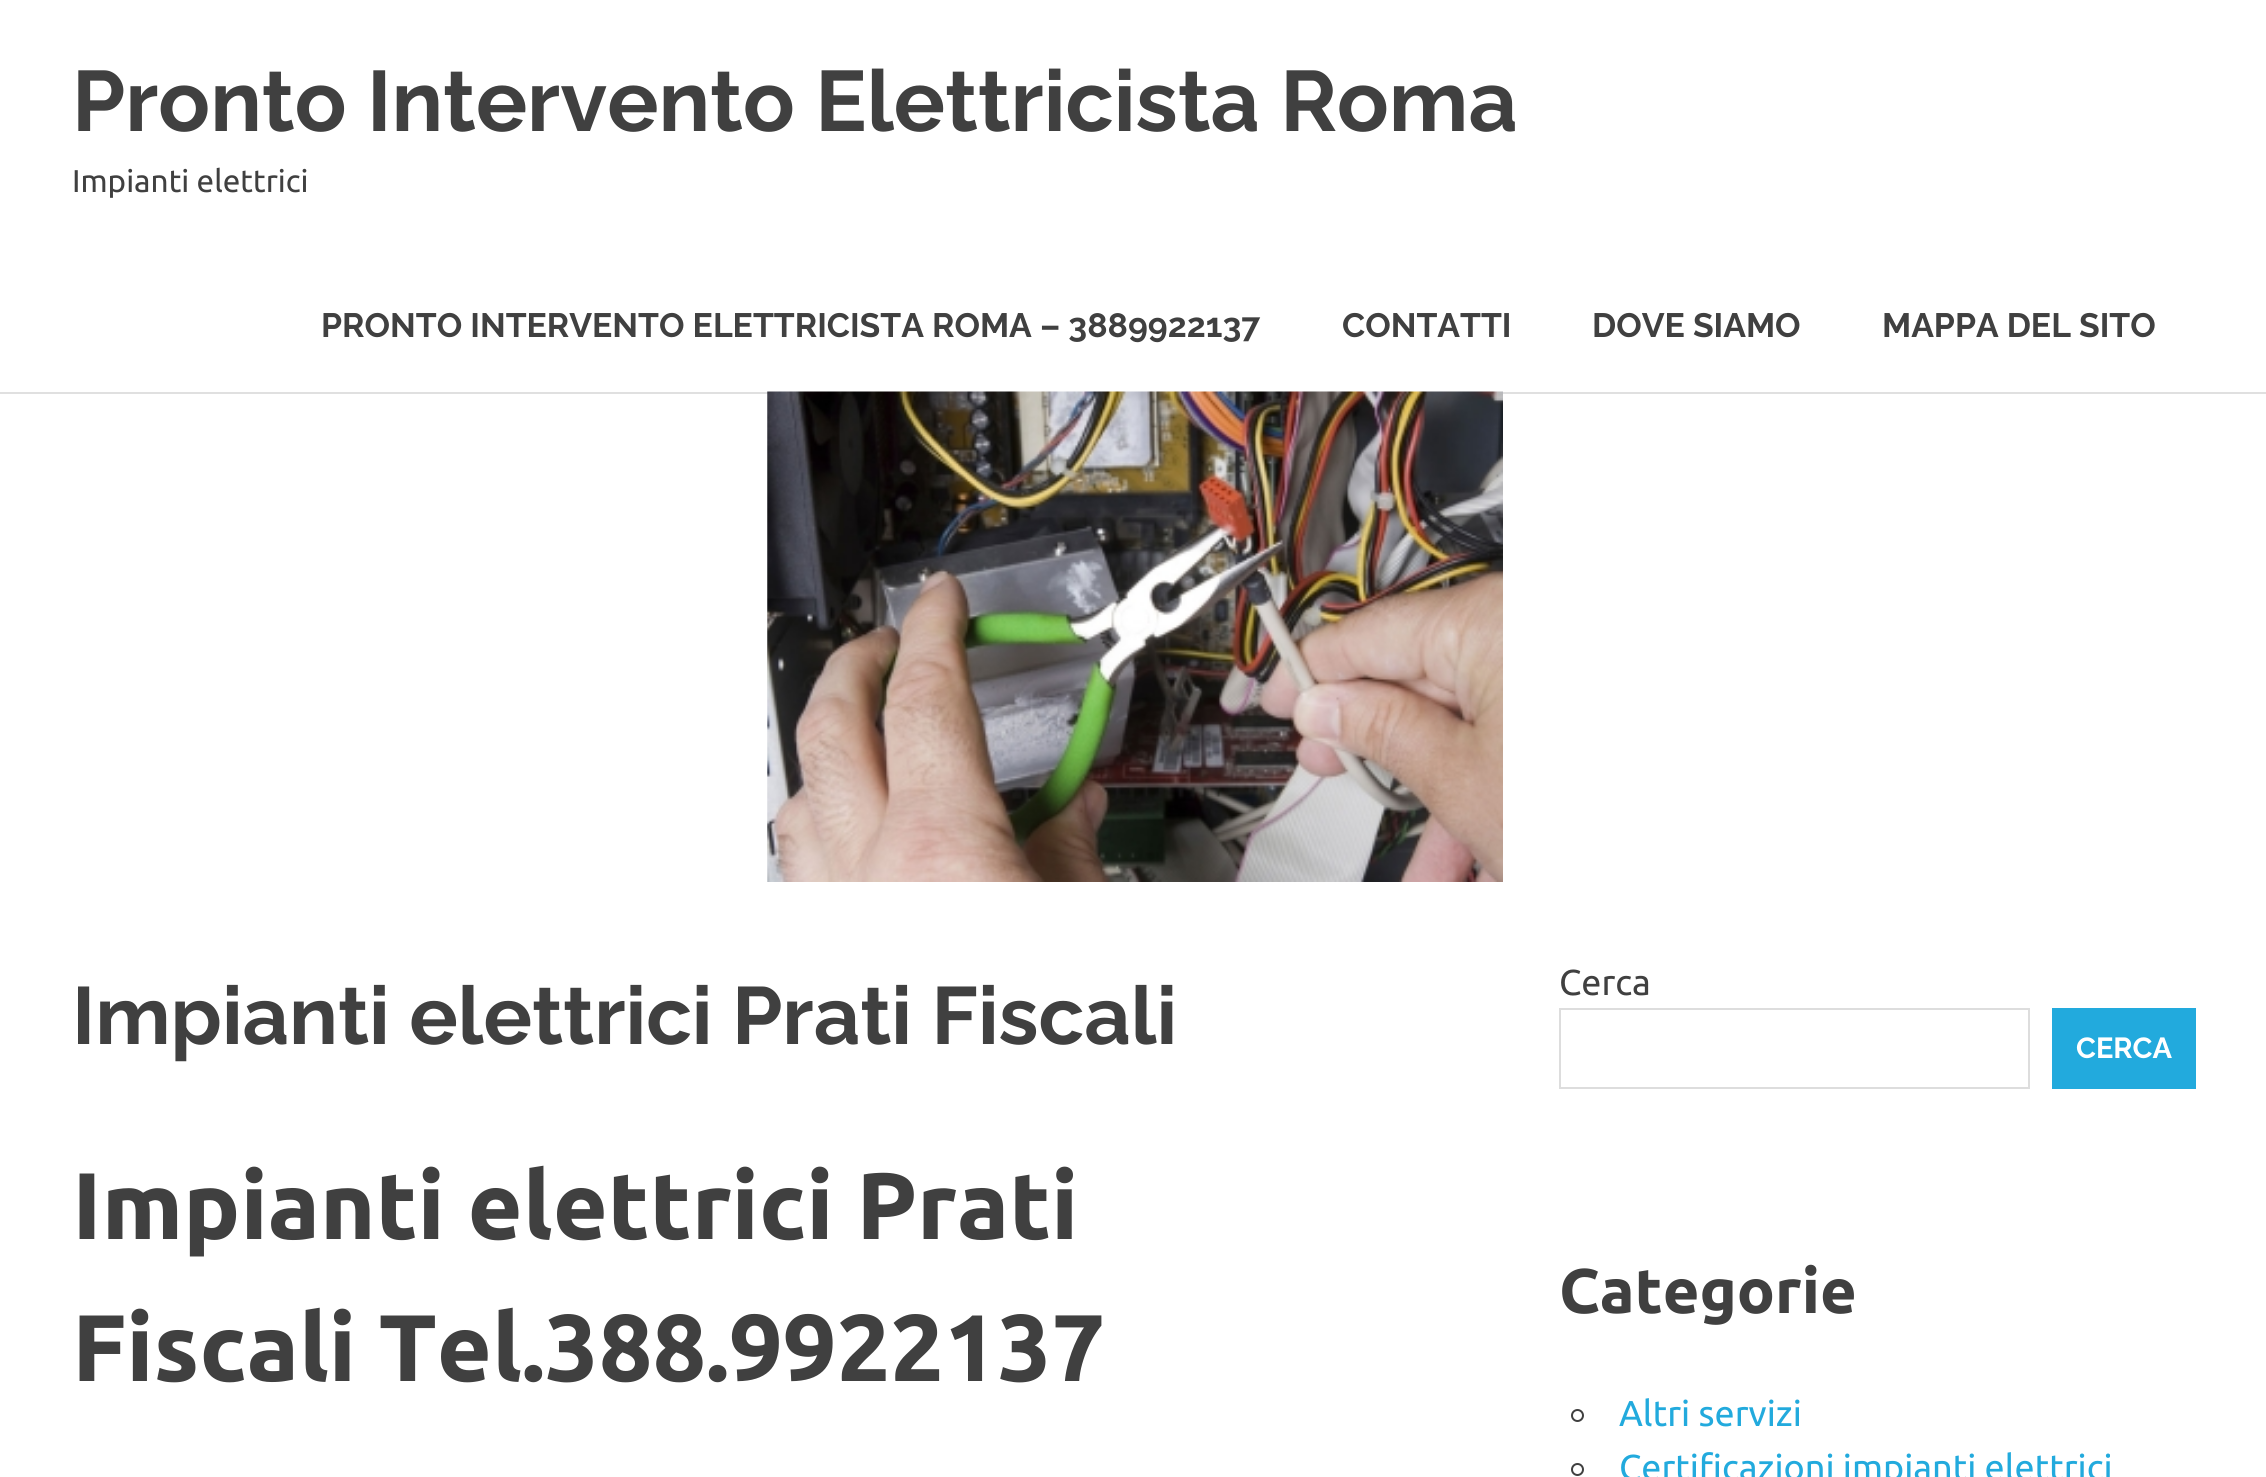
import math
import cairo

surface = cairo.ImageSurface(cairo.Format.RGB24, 2266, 1477)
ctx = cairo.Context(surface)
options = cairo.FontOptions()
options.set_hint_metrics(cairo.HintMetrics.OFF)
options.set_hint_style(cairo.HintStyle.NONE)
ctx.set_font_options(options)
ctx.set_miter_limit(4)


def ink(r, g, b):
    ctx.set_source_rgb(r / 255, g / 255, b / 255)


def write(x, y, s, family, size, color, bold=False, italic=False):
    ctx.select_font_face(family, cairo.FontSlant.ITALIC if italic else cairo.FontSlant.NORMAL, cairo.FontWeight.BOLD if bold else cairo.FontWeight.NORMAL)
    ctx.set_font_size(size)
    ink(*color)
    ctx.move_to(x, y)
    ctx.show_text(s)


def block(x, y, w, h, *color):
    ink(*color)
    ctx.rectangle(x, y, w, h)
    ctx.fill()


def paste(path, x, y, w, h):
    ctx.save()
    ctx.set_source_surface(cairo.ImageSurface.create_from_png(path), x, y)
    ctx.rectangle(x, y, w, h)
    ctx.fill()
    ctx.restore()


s1 = dict(family="Raleway Thin", size=85.5, color=(64, 64, 64))
s2 = dict(family="Ubuntu", size=31.5, color=(64, 64, 64))
s3 = dict(family="Raleway Thin", size=33.75, color=(64, 64, 64))
s4 = dict(family="Raleway Thin", size=81, color=(64, 64, 64))
s5 = dict(family="Ubuntu", size=94.5, color=(64, 64, 64), bold=True)
s6 = dict(family="Ubuntu", size=36, color=(64, 64, 64))
s7 = dict(family="Raleway Thin", size=29, color=(255, 255, 255))
s8 = dict(family="Ubuntu", size=63, color=(64, 64, 64), bold=True)
s9 = dict(family="Ubuntu", size=36, color=(34, 170, 221))

ink(255, 255, 255)
ctx.paint()
block(0, 392, 2266, 2, 224, 224, 224)
write(72, 131, "Pronto Intervento Elettricista Roma", **s1)
write(72, 192, "Impianti elettrici", **s2)
write(321, 337, "PRONTO INTERVENTO ELETTRICISTA ROMA – 3889922137", **s3)
write(1342, 337, "CONTATTI", **s3)
write(1592, 337, "DOVE SIAMO", **s3)
write(1882, 337, "MAPPA DEL SITO", **s3)
paste("pic1.png", 767, 391, 736, 491)
write(72, 1044, "Impianti elettrici Prati Fiscali", **s4)
write(72, 1239, "Impianti elettrici Prati", **s5)
write(72, 1381, "Fiscali Tel.388.9922137", **s5)
write(1559, 995, "Cerca", **s6)
ctx.rectangle(1560, 1009, 469, 79)
ink(221, 221, 221)
ctx.stroke()
block(2052, 1008, 144, 81, 34, 170, 221)
write(2076, 1058, "CERCA", **s7)
write(1559, 1313, "Categorie", **s8)
ctx.new_path()
ctx.arc(1577.5, 1415.5, 5.5, 0, 2 * math.pi)
ctx.stroke()
write(1619, 1426, "Altri servizi", **s9)
ctx.new_path()
ctx.arc(1577.5, 1469.5, 5.5, 0, 2 * math.pi)
ink(64, 64, 64)
ctx.stroke()
write(1619, 1480, "Certificazioni impianti elettrici", **s9)
surface.write_to_png("screenshot.png")
